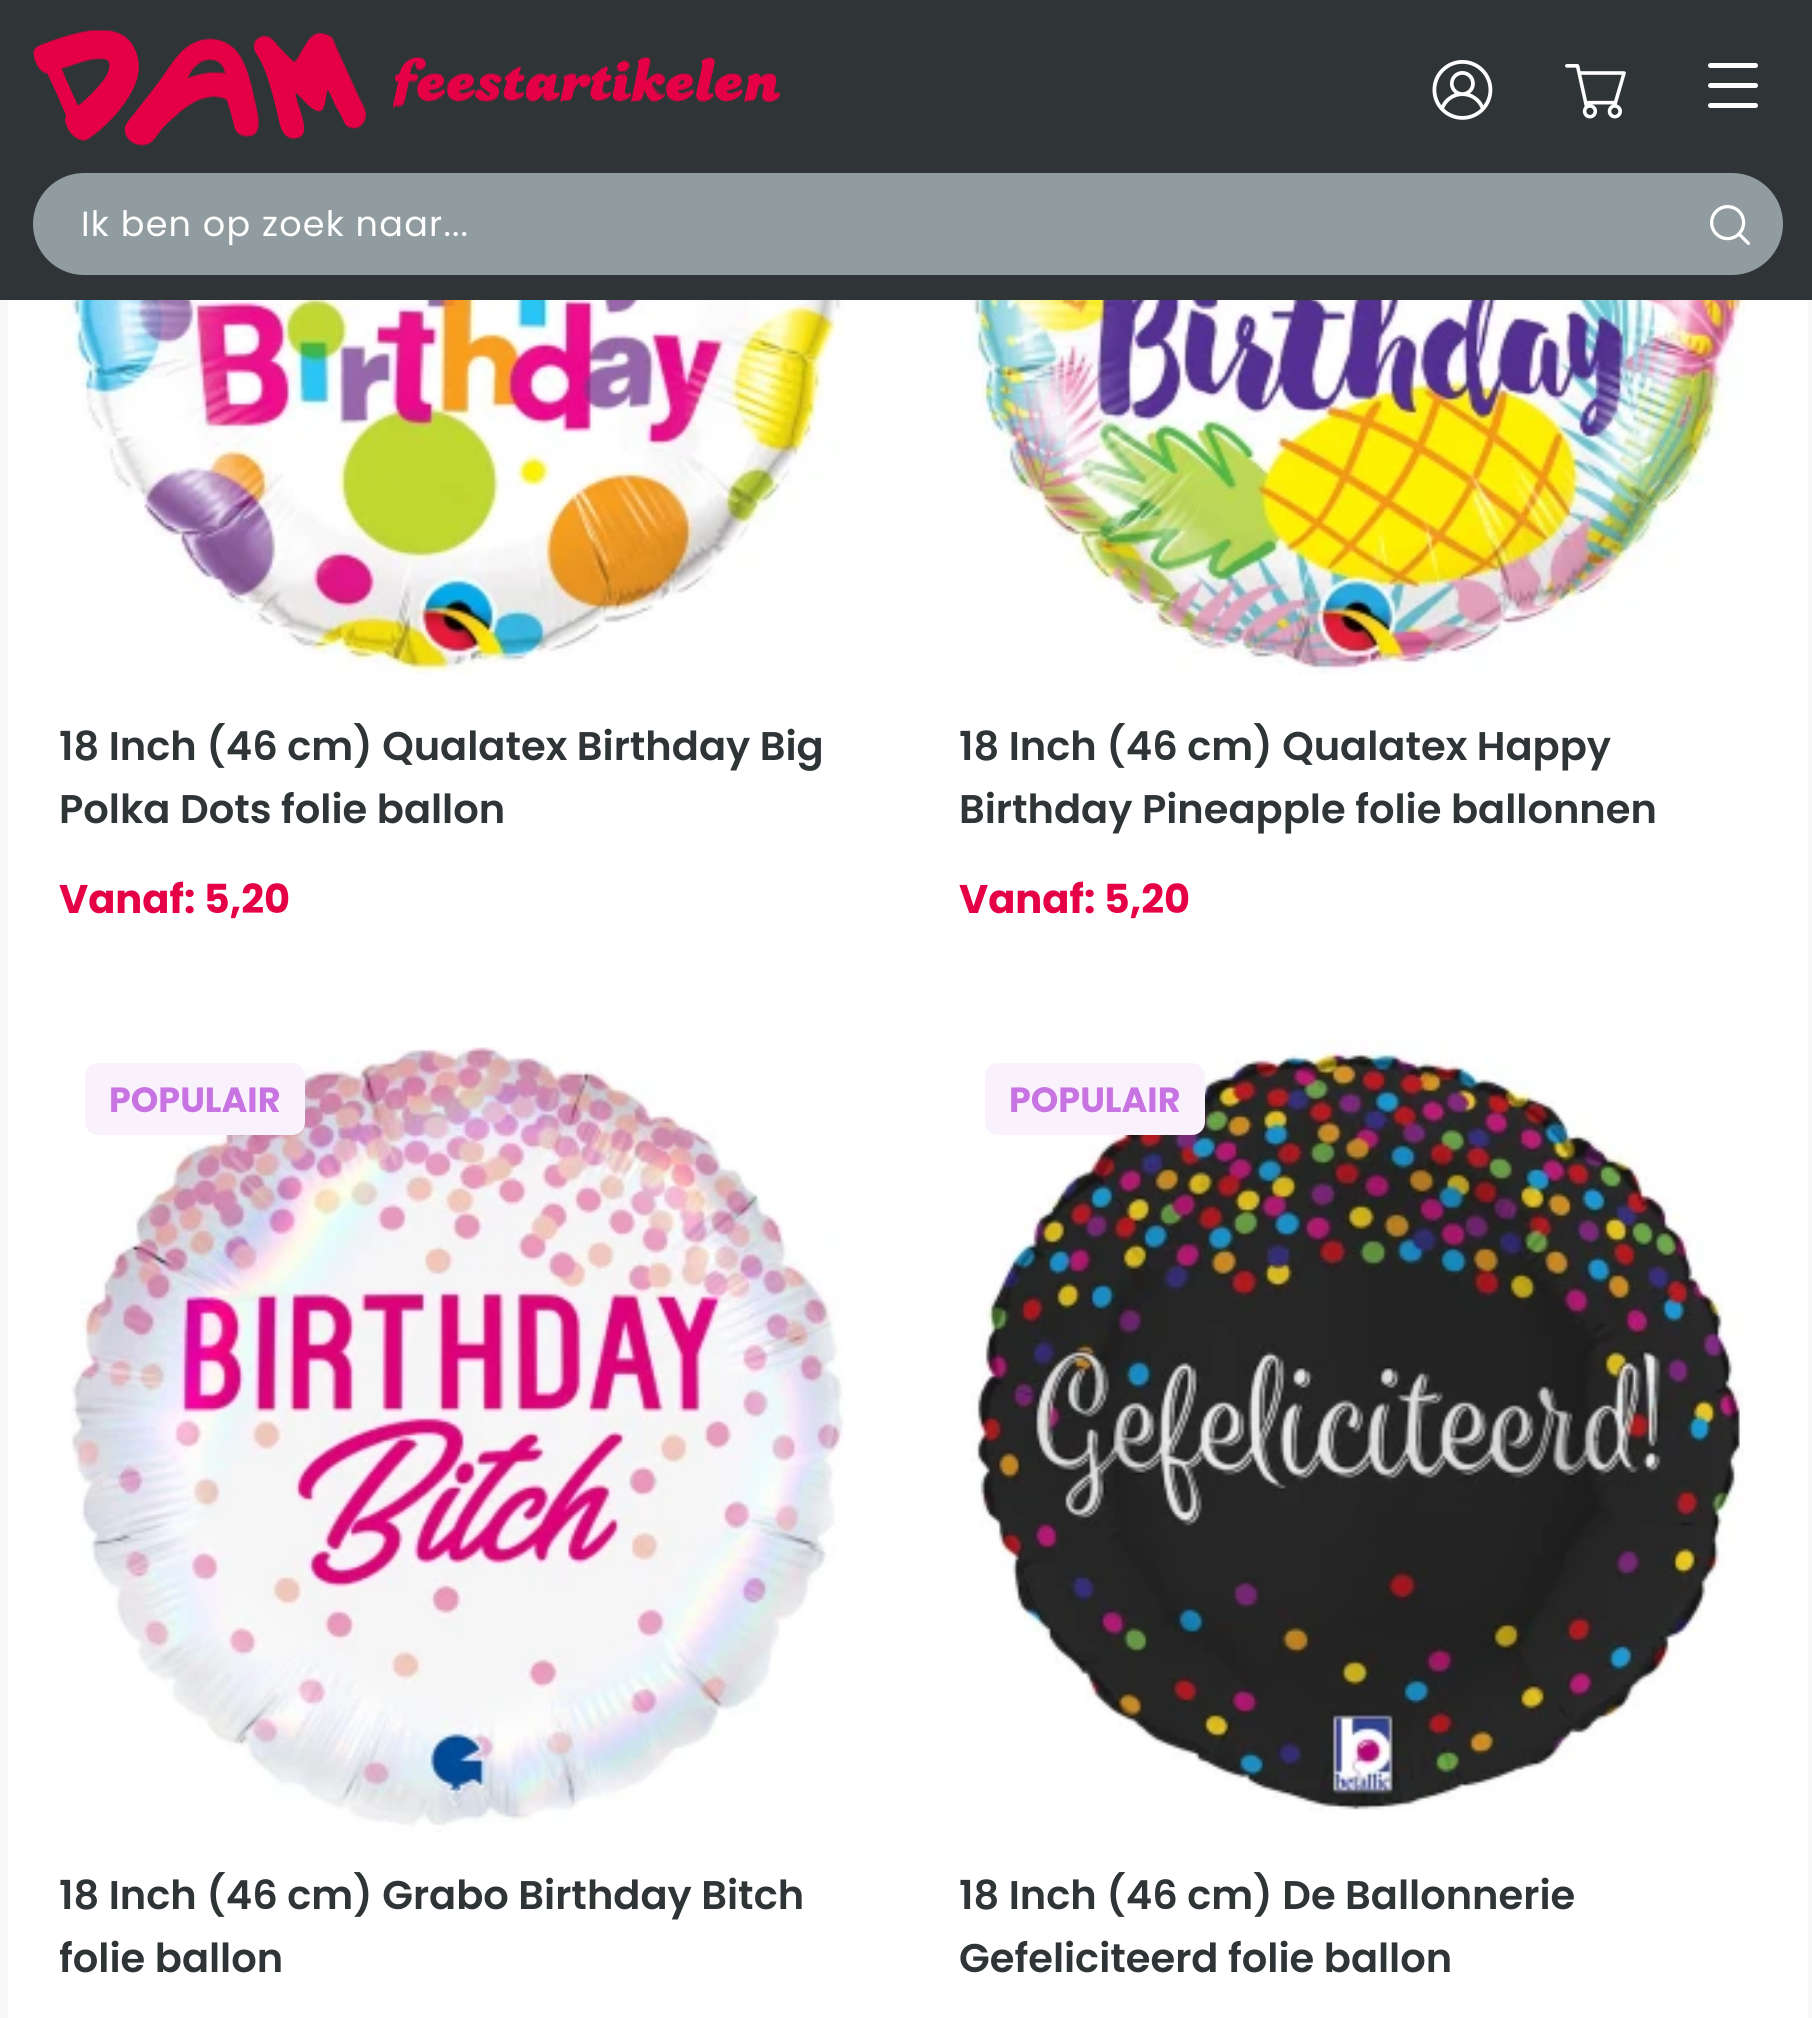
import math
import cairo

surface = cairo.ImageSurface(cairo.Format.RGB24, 1812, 2018)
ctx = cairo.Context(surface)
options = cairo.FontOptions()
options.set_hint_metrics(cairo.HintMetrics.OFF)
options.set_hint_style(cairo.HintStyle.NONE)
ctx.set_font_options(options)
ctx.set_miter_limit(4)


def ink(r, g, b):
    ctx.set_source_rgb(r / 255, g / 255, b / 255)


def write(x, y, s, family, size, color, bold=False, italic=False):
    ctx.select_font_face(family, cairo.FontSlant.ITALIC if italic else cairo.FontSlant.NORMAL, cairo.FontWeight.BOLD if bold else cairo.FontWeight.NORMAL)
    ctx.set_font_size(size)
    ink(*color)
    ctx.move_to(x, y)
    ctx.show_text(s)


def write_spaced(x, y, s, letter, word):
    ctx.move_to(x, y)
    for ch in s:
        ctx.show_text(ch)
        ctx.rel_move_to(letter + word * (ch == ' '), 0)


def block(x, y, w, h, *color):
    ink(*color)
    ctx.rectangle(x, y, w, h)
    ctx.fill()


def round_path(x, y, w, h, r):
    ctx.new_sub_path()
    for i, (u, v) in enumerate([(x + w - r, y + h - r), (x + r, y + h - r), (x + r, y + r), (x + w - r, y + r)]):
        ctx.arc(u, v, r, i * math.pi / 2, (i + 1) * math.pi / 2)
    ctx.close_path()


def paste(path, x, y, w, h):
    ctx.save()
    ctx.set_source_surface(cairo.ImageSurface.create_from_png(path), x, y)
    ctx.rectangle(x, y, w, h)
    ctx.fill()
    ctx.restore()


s1 = dict(family="Poppins SemiBold", size=40, color=(47, 52, 54))
s2 = dict(family="Poppins", size=40, color=(229, 0, 70), bold=True)
s3 = dict(family="Poppins", size=35, color=(200, 115, 226), bold=True)

ink(248, 248, 248)
ctx.paint()
block(0, 0, 1812, 300, 47, 52, 54)
paste("pic1.png", 33, 30, 747, 116)
paste("pic2.png", 1432, 60, 61, 60)
paste("pic3.png", 1565, 64, 61, 55)
ink(255, 255, 255)
round_path(1708, 63, 50, 5, 2.5)
ctx.fill()
round_path(1708, 83, 50, 5, 2.5)
ctx.fill()
round_path(1708, 103, 50, 5, 2.5)
ctx.fill()
ink(145, 156, 160)
round_path(33, 173, 1750, 102, 51)
ctx.fill()
ctx.select_font_face("Poppins")
ctx.set_font_size(35)
ink(255, 255, 255)
write_spaced(81, 236, "Ik ben op zoek naar...", 1.25, 0)
paste("pic4.png", 1710, 205, 40, 40)
block(8, 300, 1800, 1718, 255, 255, 255)
paste("pic5.png", 60, 300, 785, 375)
write(59, 760, "18 Inch (46 cm) Qualatex Birthday Big", **s1)
write(59, 823, "Polka Dots folie ballon", **s1)
write(59, 913, "Vanaf: 5,20", **s2)
paste("pic6.png", 960, 300, 787, 375)
write(959, 760, "18 Inch (46 cm) Qualatex Happy", **s1)
write(959, 823, "Birthday Pineapple folie ballonnen", **s1)
write(959, 913, "Vanaf: 5,20", **s2)
paste("pic7.png", 70, 1047, 775, 785)
ink(249, 242, 252)
round_path(85, 1063, 220, 72, 13)
ctx.fill()
write(109, 1112, "POPULAIR", **s3)
write(59, 1909, "18 Inch (46 cm) Grabo Birthday Bitch", **s1)
ctx.save()
ctx.rectangle(60, 1865, 795, 125)
ctx.clip()
write(59, 1972, "folie ballon", **s1)
ctx.restore()
paste("pic8.png", 971, 1038, 774, 773)
ink(249, 242, 252)
round_path(985, 1063, 220, 72, 13)
ctx.fill()
write(1009, 1112, "POPULAIR", **s3)
write(959, 1909, "18 Inch (46 cm) De Ballonnerie", **s1)
write(959, 1972, "Gefeliciteerd folie ballon", **s1)
surface.write_to_png("screenshot.png")
